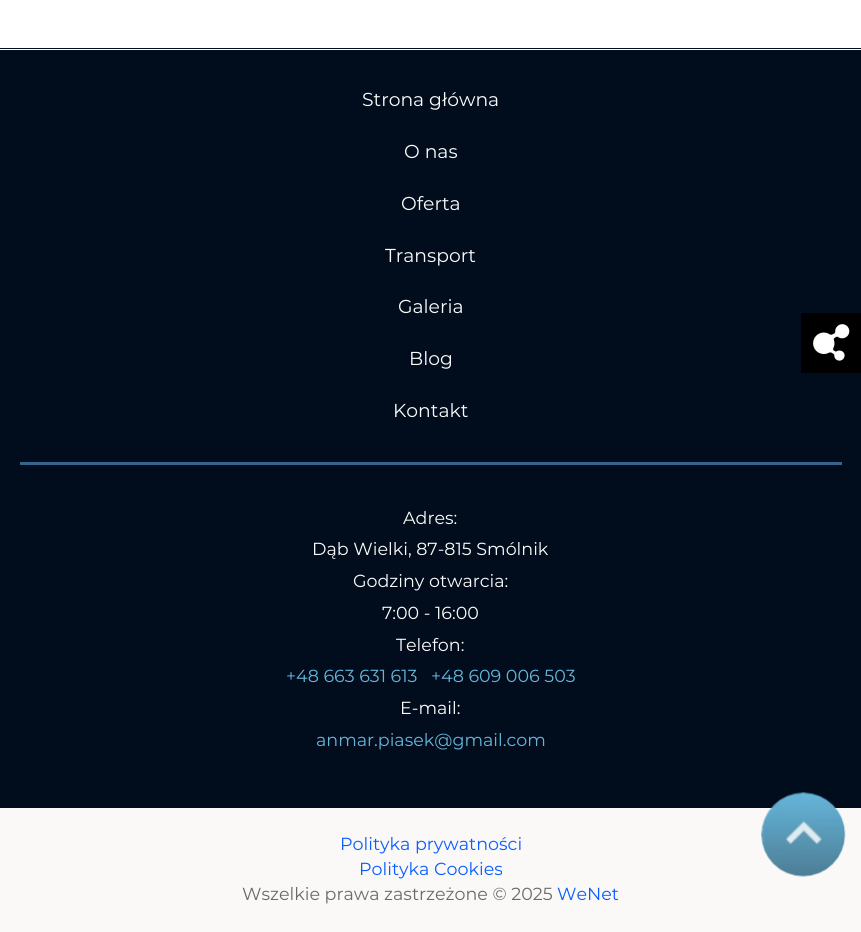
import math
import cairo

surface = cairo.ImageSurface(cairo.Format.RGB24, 861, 932)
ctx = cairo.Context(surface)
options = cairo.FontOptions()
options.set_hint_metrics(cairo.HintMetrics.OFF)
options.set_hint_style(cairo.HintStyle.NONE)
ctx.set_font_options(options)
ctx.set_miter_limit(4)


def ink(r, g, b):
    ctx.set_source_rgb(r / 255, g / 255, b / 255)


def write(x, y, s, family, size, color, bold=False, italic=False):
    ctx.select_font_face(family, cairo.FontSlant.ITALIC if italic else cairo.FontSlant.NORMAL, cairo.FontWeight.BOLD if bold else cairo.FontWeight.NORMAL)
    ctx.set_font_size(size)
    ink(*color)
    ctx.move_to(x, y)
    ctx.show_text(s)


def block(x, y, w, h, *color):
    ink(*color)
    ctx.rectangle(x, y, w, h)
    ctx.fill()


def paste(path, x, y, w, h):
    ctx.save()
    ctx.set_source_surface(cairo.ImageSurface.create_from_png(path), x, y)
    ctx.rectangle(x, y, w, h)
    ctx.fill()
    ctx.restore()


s1 = dict(family="Montserrat", size=18.75, color=(252, 252, 252))
s2 = dict(family="Montserrat", size=17.5, color=(252, 252, 252))
s3 = dict(family="Montserrat", size=17.5, color=(101, 182, 219))
s4 = dict(family="Montserrat", size=17.5, color=(10, 92, 255))
s5 = dict(family="Montserrat", size=17.5, color=(106, 106, 106))

ink(255, 255, 255)
ctx.paint()
block(0, 48, 861, 1, 1, 12, 28)
block(0, 50, 861, 758, 1, 12, 28)
block(0, 808, 861, 124, 250, 249, 247)
paste("pic1.png", 761, 792, 85, 85)
write(362, 106, "Strona główna", **s1)
write(404, 158, "O nas", **s1)
write(401, 210, "Oferta", **s1)
write(385, 262, "Transport", **s1)
write(398, 313, "Galeria", **s1)
write(409, 365, "Blog", **s1)
write(393, 417, "Kontakt", **s1)
block(20, 462, 822, 3, 54, 100, 139)
write(403, 524, "Adres:", **s2)
write(312, 555, "Dąb Wielki, 87-815 Smólnik", **s2)
write(353, 587, "Godziny otwarcia:", **s2)
write(382, 619, "7:00 - 16:00", **s2)
write(396, 651, "Telefon:", **s2)
write(286, 682, "+48 663 631 613", **s3)
write(431, 682, "+48 609 006 503", **s3)
write(400, 714, "E-mail:", **s2)
write(316, 746, "anmar.piasek@gmail.com", **s3)
write(340, 850, "Polityka prywatności", **s4)
write(359, 875, "Polityka Cookies", **s4)
write(242, 900, "Wszelkie prawa zastrzeżone © 2025", **s5)
write(557, 900, "WeNet", **s4)
block(801, 313, 60, 60, 0, 0, 0)
paste("pic2.png", 813, 324, 37, 37)
surface.write_to_png("screenshot.png")
